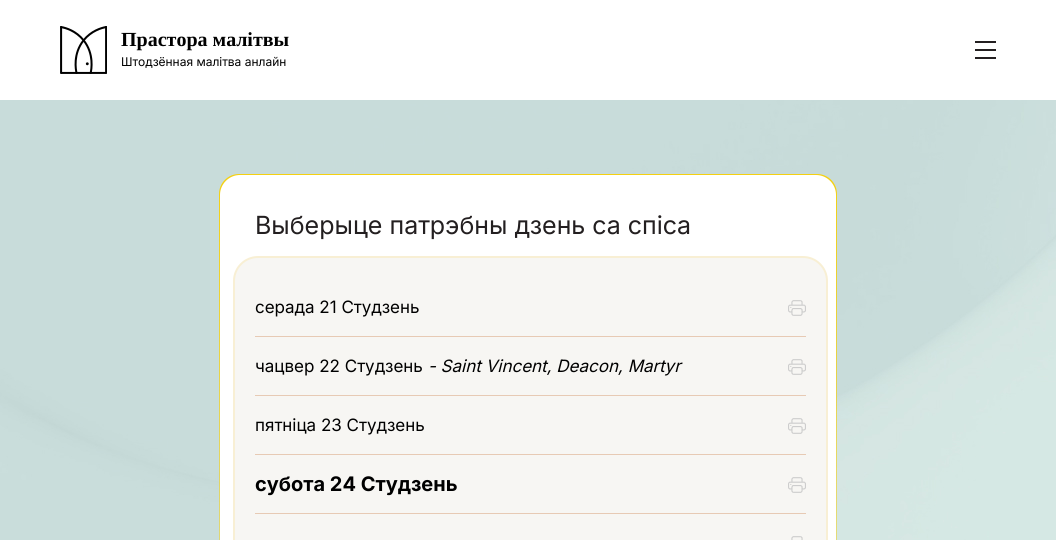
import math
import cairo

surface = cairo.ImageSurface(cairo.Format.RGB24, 1056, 540)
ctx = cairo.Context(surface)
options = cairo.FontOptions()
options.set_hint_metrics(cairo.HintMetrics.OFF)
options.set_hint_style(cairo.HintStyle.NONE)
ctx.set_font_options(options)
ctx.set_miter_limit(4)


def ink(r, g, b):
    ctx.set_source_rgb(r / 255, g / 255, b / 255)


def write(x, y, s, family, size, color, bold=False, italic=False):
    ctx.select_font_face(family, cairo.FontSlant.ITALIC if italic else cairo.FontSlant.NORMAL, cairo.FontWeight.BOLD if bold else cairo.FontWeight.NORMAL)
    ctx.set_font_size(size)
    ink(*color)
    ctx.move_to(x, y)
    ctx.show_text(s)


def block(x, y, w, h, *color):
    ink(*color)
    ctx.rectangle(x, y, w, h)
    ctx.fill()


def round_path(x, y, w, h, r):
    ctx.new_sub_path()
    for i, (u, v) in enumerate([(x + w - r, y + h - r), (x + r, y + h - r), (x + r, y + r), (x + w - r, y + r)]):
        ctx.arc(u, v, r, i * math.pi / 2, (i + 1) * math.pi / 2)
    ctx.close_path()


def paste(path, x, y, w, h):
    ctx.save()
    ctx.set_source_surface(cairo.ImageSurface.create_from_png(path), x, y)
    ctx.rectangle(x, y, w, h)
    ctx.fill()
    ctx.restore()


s1 = dict(family="Liberation Serif", size=20, color=(0, 0, 0), bold=True)
s2 = dict(family="Inter", size=12, color=(0, 0, 0))
s3 = dict(family="Inter", size=25, color=(35, 31, 32))
s4 = dict(family="Inter", size=17, color=(0, 0, 0))
s5 = dict(family="Inter", size=17, color=(0, 0, 0), italic=True)
s6 = dict(family="Inter", size=20, color=(0, 0, 0), bold=True)

ink(255, 255, 255)
ctx.paint()
paste("pic1.png", 60, 26, 47, 48)
write(121, 46, "Прастора малітвы", **s1)
write(121, 66, "Штодзённая малітва анлайн", **s2)
block(975, 41, 21, 2, 35, 31, 32)
block(975, 49, 21, 2, 35, 31, 32)
block(975, 57, 21, 2, 35, 31, 32)
paste("pic2.png", 0, 100, 1056, 440)
ink(255, 255, 255)
ctx.new_path()
ctx.move_to(240, 175)
ctx.line_to(816, 175)
ctx.curve_to(827, 175, 836, 184, 836, 195)
ctx.line_to(836, 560)
ctx.line_to(220, 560)
ctx.line_to(220, 195)
ctx.curve_to(220, 184, 229, 175, 240, 175)
ctx.close_path()
ctx.fill()
write(255, 234, "Выберыце патрэбны дзень са спіса", **s3)
ink(247, 246, 243)
round_path(233, 256, 595, 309, 25)
ctx.fill()
round_path(234, 257, 593, 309, 24)
ctx.set_source_rgba(1, 0.757, 0.027, 0.13)
ctx.stroke()
block(255, 336, 551, 1, 231, 202, 180)
write(255, 313, "серада 21 Студзень", **s4)
paste("pic3.png", 788, 300, 18, 16)
block(255, 395, 551, 1, 231, 202, 180)
write(255, 372, "чацвер 22 Студзень", **s4)
write(428, 372, "- Saint Vincent, Deacon, Martyr", **s5)
paste("pic3.png", 788, 359, 18, 16)
block(255, 454, 551, 1, 231, 202, 180)
write(255, 431, "пятніца 23 Студзень", **s4)
paste("pic3.png", 788, 418, 18, 16)
block(255, 513, 551, 1, 231, 202, 180)
write(255, 491, "субота 24 Студзень", **s6)
paste("pic3.png", 788, 477, 18, 16)
paste("pic4.png", 791, 536, 12, 4)
surface.write_to_png("screenshot.png")
